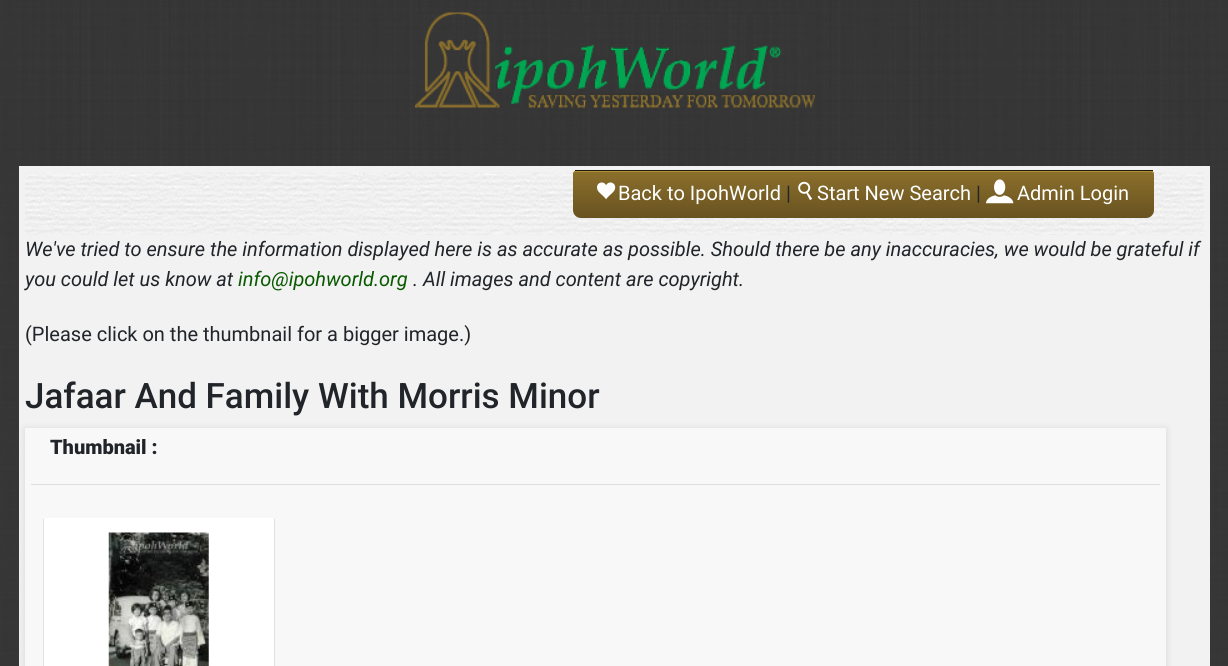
import math
import cairo

surface = cairo.ImageSurface(cairo.Format.RGB24, 1228, 666)
ctx = cairo.Context(surface)
options = cairo.FontOptions()
options.set_hint_metrics(cairo.HintMetrics.OFF)
options.set_hint_style(cairo.HintStyle.NONE)
ctx.set_font_options(options)
ctx.set_miter_limit(4)


def ink(r, g, b):
    ctx.set_source_rgb(r / 255, g / 255, b / 255)


def write(x, y, s, family, size, color, bold=False, italic=False):
    ctx.select_font_face(family, cairo.FontSlant.ITALIC if italic else cairo.FontSlant.NORMAL, cairo.FontWeight.BOLD if bold else cairo.FontWeight.NORMAL)
    ctx.set_font_size(size)
    ink(*color)
    ctx.move_to(x, y)
    ctx.show_text(s)


def block(x, y, w, h, *color):
    ink(*color)
    ctx.rectangle(x, y, w, h)
    ctx.fill()


def round_path(x, y, w, h, r):
    ctx.new_sub_path()
    for i, (u, v) in enumerate([(x + w - r, y + h - r), (x + r, y + h - r), (x + r, y + r), (x + w - r, y + r)]):
        ctx.arc(u, v, r, i * math.pi / 2, (i + 1) * math.pi / 2)
    ctx.close_path()


def blur_box(x, y, w, h, r, blur, alpha):
    ctx.push_group_with_content(cairo.Content.ALPHA)
    ctx.set_operator(cairo.Operator.SOURCE)
    for i in range(15, -16, -2):
        e = blur * i / 6
        if min(w, h) + 2 * e > 0:
            ctx.set_source_rgba(0, 0, 0, alpha * math.erfc((i - 1) / 8.5) / 2)
            round_path(x - e, y - e, w + 2 * e, h + 2 * e, max(0, min(r + e + blur * .6, min(w, h) / 2 + e)))
            ctx.fill()
    ctx.mask(ctx.pop_group())


def paste(path, x, y, w, h):
    ctx.save()
    ctx.set_source_surface(cairo.ImageSurface.create_from_png(path), x, y)
    ctx.rectangle(x, y, w, h)
    ctx.fill()
    ctx.restore()


s1 = dict(family="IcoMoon", size=26, color=(255, 255, 255))
s2 = dict(family="Roboto", size=20, color=(255, 255, 255))
s3 = dict(family="Roboto", size=20, color=(33, 37, 41))
s4 = dict(family="IcoMoon", size=39, color=(255, 255, 255))
s5 = dict(family="Roboto", size=20, color=(33, 37, 41), italic=True)
s6 = dict(family="Roboto", size=20, color=(9, 89, 0), italic=True)
s7 = dict(family="Roboto Medium", size=35, color=(33, 37, 41))
s8 = dict(family="Roboto Black", size=20, color=(33, 37, 41))

ink(255, 255, 255)
ctx.paint()
paste("pic1.png", 0, 0, 1228, 666)
paste("pic2.png", 415, 12, 400, 96)
block(19, 166, 1191, 500, 242, 242, 242)
paste("pic3.png", 25, 172, 1179, 63)
ctx.save()
ctx.new_path()
ctx.move_to(577, 170)
ctx.line_to(1150, 170)
ctx.curve_to(1152, 170, 1154, 172, 1154, 174)
ctx.line_to(1154, 210)
ctx.curve_to(1154, 214.5, 1150.5, 218, 1146, 218)
ctx.line_to(581, 218)
ctx.curve_to(576.5, 218, 573, 214.5, 573, 210)
ctx.line_to(573, 174)
ctx.curve_to(573, 172, 575, 170, 577, 170)
ctx.close_path()
ctx.clip()
gradient = cairo.LinearGradient(863, 171, 863, 218)
gradient.add_color_stop_rgba(0, 0.545, 0.435, 0.169, 1)
gradient.add_color_stop_rgba(1, 0.408, 0.322, 0.125, 1)
ctx.set_source(gradient)
ctx.new_path()
ctx.move_to(573, 171)
ctx.line_to(1154, 171)
ctx.line_to(1154, 210)
ctx.curve_to(1154, 214.5, 1150.5, 218, 1146, 218)
ctx.line_to(581, 218)
ctx.curve_to(576.5, 218, 573, 214.5, 573, 210)
ctx.close_path()
ctx.fill()
ctx.restore()
ink(177, 143, 54)
ctx.new_path()
ctx.move_to(576, 172)
ctx.line_to(1150, 172)
ctx.curve_to(1152, 172, 1153, 173, 1154, 174)
ctx.curve_to(1154, 172, 1152, 171, 1150, 171)
ctx.line_to(576, 171)
ctx.curve_to(575, 171, 573, 172, 573, 173)
ctx.line_to(572, 174)
ctx.curve_to(573, 173, 575, 172, 576, 172)
ctx.close_path()
ctx.fill()
block(575, 170, 578, 1, 31, 25, 14)
write(597, 200, "h", **s1)
write(618, 200, "Back to IpohWorld", **s2)
write(786, 200, "|", **s3)
write(796, 200, "s", **s1)
write(817, 200, "Start New Search", **s2)
write(976, 200, "|", **s3)
write(986, 205, "u", **s4)
write(1017, 200, "Admin Login", **s2)
write(25, 256, "We've tried to ensure the information displayed here is as accurate as possible. Should there be any inaccuracies, we would be grateful if", **s5)
write(25, 286, "you could let us know at", **s5)
write(238, 286, "info@ipohworld.org", **s6)
write(413, 286, ". All images and content are copyright.", **s5)
write(25, 341, "(Please click on the thumbnail for a bigger image.)", **s3)
write(25, 408, "Jafaar And Family With Morris Minor", **s7)
ink(0, 0, 0)
blur_box(25, 429, 1141, 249, 0, 4, 0.12)
block(25, 428, 1141, 238, 248, 248, 248)
write(50, 454, "Thumbnail :", **s8)
block(31, 484, 1129, 1, 223, 223, 223)
ink(0, 0, 0)
blur_box(44, 519, 230, 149, 0, 0.5, 0.4)
block(44, 518, 230, 148, 255, 255, 255)
paste("pic4.png", 108, 532, 101, 134)
surface.write_to_png("screenshot.png")
